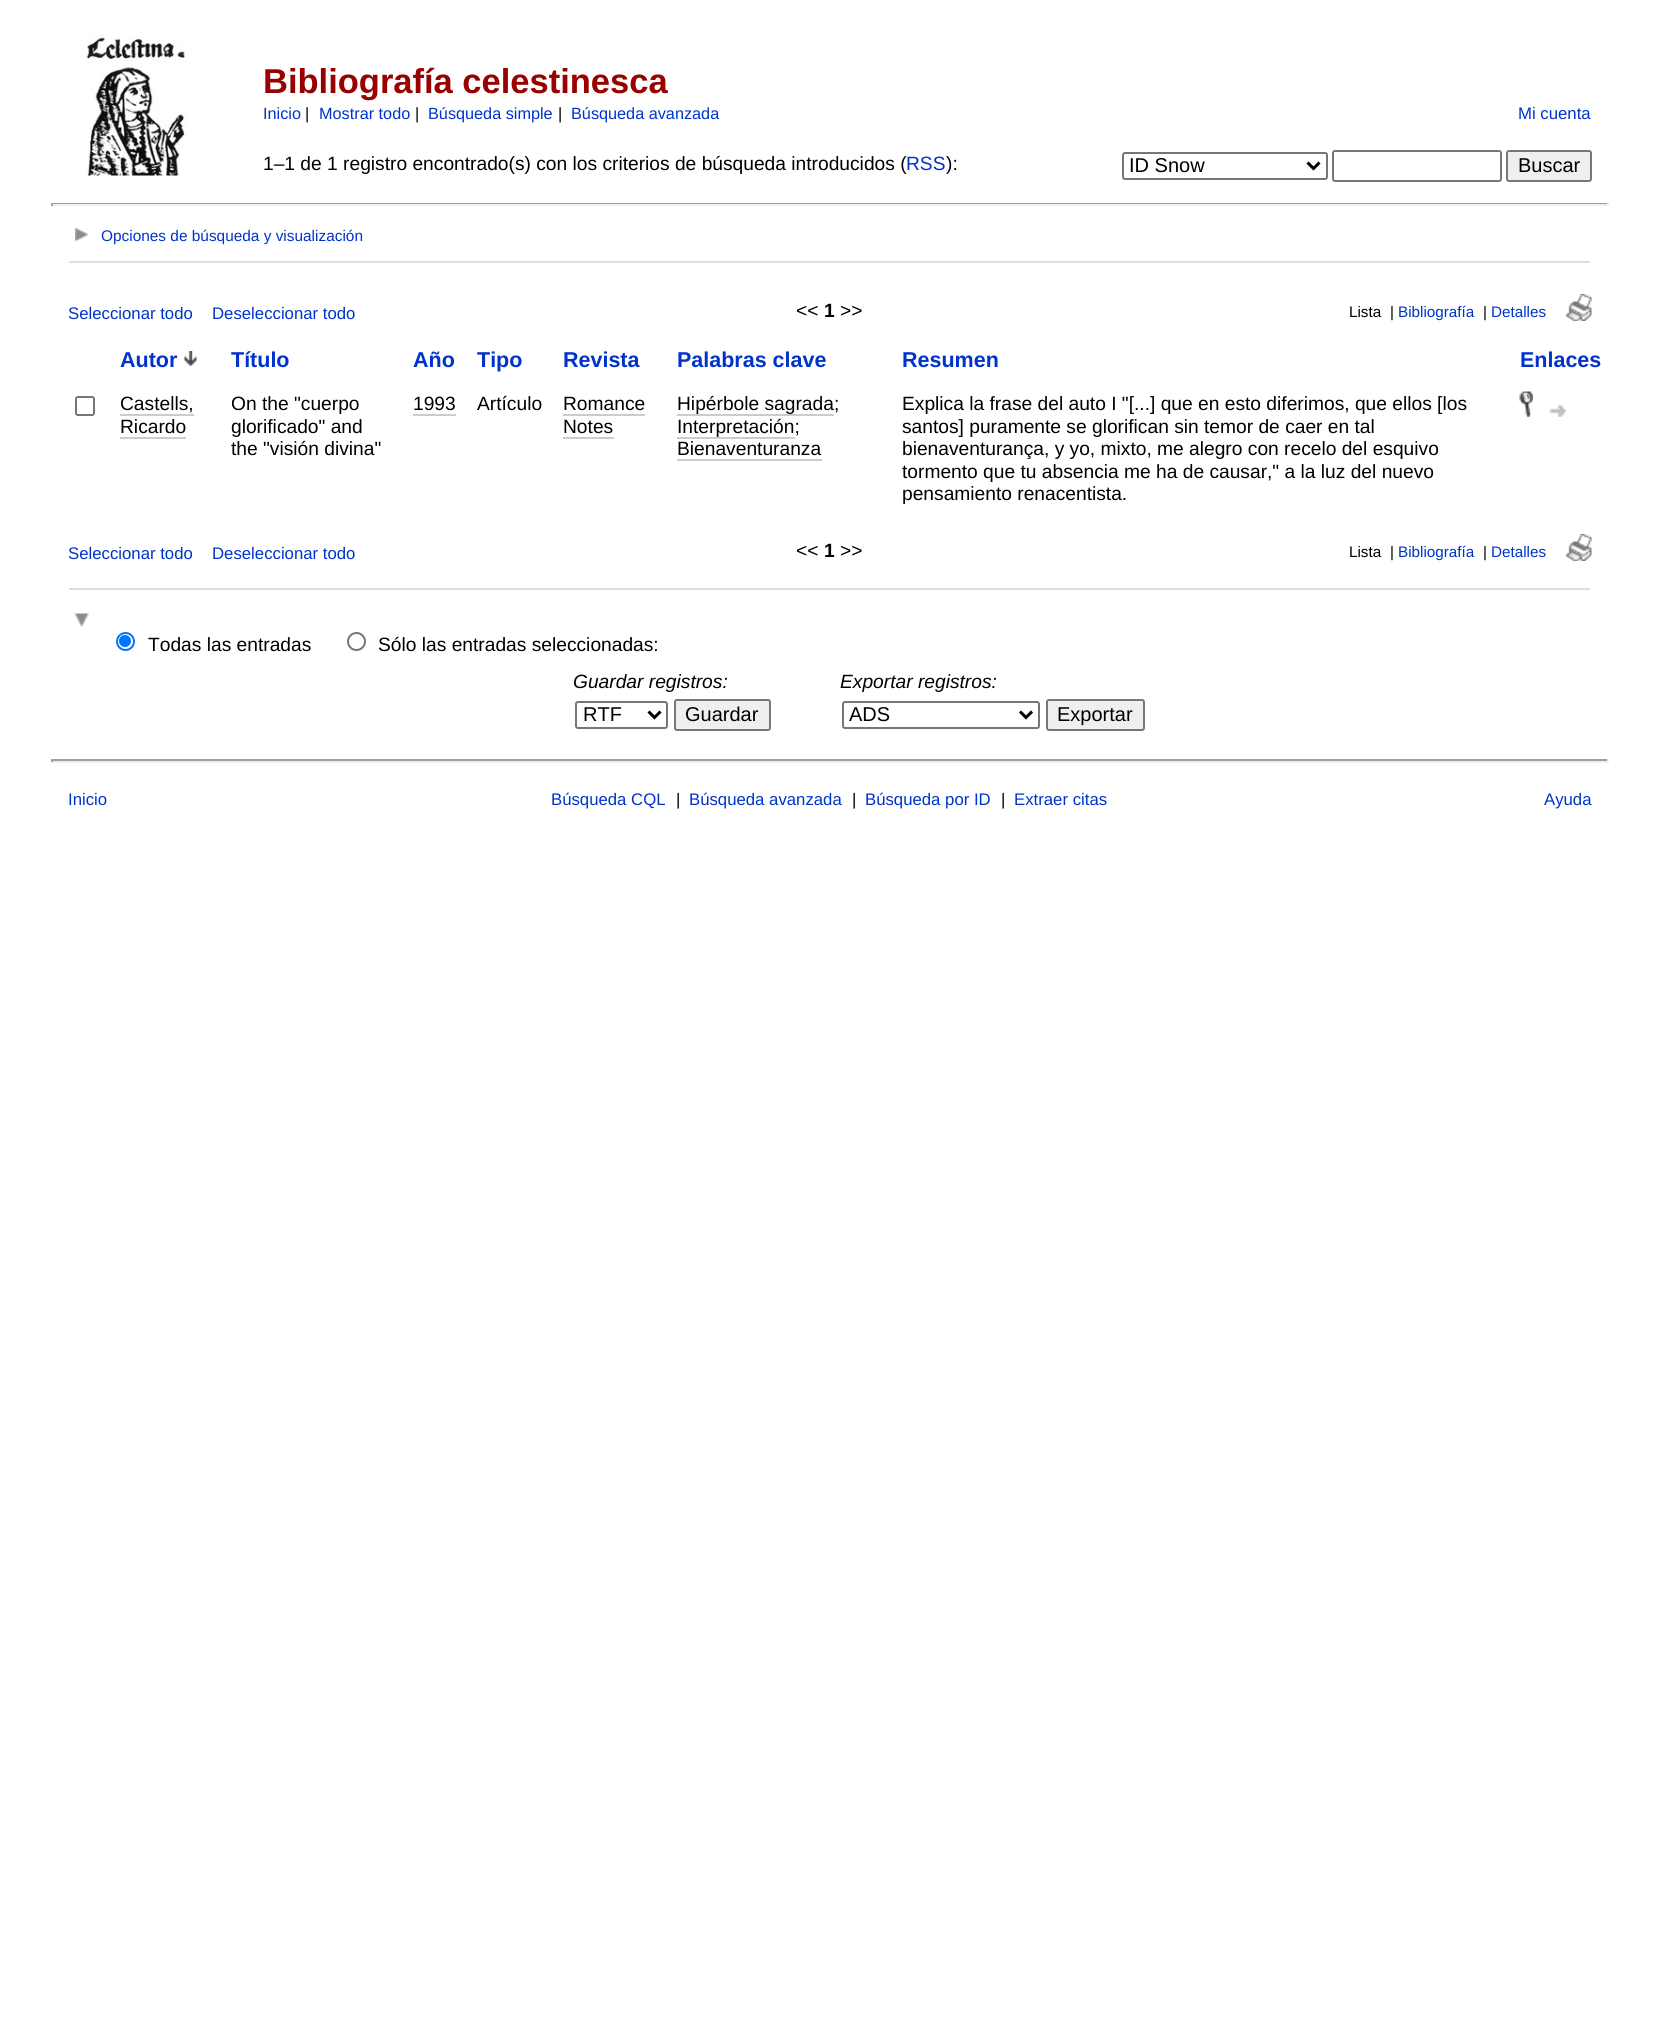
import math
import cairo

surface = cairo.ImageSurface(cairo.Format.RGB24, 1658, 2033)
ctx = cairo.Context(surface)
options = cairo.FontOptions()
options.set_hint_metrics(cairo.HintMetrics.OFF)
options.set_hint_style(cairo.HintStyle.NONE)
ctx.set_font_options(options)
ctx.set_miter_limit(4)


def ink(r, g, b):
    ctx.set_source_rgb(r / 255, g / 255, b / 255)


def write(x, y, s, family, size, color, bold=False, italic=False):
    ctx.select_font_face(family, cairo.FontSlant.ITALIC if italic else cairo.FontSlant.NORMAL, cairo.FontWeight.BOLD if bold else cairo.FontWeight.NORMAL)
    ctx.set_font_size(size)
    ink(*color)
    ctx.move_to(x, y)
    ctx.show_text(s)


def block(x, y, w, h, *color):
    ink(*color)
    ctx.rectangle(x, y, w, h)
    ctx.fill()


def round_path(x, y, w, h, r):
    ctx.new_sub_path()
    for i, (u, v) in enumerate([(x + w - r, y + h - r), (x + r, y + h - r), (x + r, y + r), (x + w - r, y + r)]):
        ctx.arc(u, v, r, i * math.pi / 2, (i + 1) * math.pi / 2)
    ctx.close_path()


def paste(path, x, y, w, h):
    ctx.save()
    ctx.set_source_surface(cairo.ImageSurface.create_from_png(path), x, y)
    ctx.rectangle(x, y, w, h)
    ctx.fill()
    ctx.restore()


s1 = dict(family="Liberation Sans", size=34.5, color=(153, 0, 0), bold=True)
s2 = dict(family="Liberation Sans", size=16.25, color=(0, 51, 204))
s3 = dict(family="Liberation Sans", size=16.25, color=(0, 0, 0))
s4 = dict(family="Liberation Sans", size=16.75, color=(0, 51, 204))
s5 = dict(family="Liberation Sans", size=20, color=(0, 0, 0))
s6 = dict(family="Liberation Sans", size=19.2, color=(0, 0, 0))
s7 = dict(family="Liberation Sans", size=19.2, color=(0, 51, 204))
s8 = dict(family="Liberation Sans", size=15.4, color=(0, 51, 204))
s9 = dict(family="Liberation Sans", size=19.2, color=(0, 0, 0), bold=True)
s10 = dict(family="Liberation Sans", size=15.25, color=(0, 0, 0))
s11 = dict(family="Liberation Sans", size=15.25, color=(0, 51, 204))
s12 = dict(family="Liberation Sans", size=21.5, color=(0, 51, 204), bold=True)
s13 = dict(family="Liberation Sans", size=19.2, color=(0, 0, 0), italic=True)
s14 = dict(family="Liberation Sans", size=16.75, color=(0, 0, 0))

ink(255, 255, 255)
ctx.paint()
paste("pic1.png", 86, 35, 102, 141)
write(263, 93, "Bibliografía celestinesca", **s1)
write(263, 119, "Inicio", **s2)
write(305, 119, "|", **s3)
write(319, 119, "Mostrar todo", **s2)
write(415, 119, "|", **s3)
write(428, 119, "Búsqueda simple", **s2)
write(558, 119, "|", **s3)
write(571, 119, "Búsqueda avanzada", **s2)
write(1518, 119, "Mi cuenta", **s4)
round_path(1123, 153, 204, 26, 2)
ink(118, 118, 118)
ctx.stroke()
ctx.new_path()
ctx.move_to(1307.5, 162.5)
ctx.line_to(1313.5, 168.5)
ctx.line_to(1319.5, 162.5)
ink(0, 0, 0)
ctx.set_line_width(3)
ctx.stroke()
write(1129, 172, "ID Snow", **s5)
round_path(1333, 151, 168, 30, 2)
ink(118, 118, 118)
ctx.set_line_width(2)
ctx.stroke()
ink(239, 239, 239)
round_path(1507, 151, 84, 30, 2)
ctx.fill_preserve()
ink(118, 118, 118)
ctx.stroke()
write(1518, 172, "Buscar", **s5)
write(263, 170, "1–1 de 1 registro encontrado(s) con los criterios de búsqueda introducidos (", **s6)
write(906, 170, "RSS", **s7)
write(946, 170, "):", **s6)
block(51, 203, 1557, 1, 159, 159, 159)
block(1607, 203, 2, 3, 238, 238, 238)
block(51, 204, 1557, 2, 238, 238, 238)
block(51, 203, 2, 3, 159, 159, 159)
paste("pic2.png", 75, 228, 14, 14)
write(101, 241, "Opciones de búsqueda y visualización", **s8)
block(69, 261, 1521, 2, 222, 222, 222)
write(68, 319, "Seleccionar todo", **s4)
write(212, 319, "Deseleccionar todo", **s4)
write(796, 317, "<<", **s6)
write(824, 317, "1", **s9)
write(840, 317, ">>", **s6)
write(1349, 317, "Lista", **s10)
write(1390, 317, "|", **s10)
write(1398, 317, "Bibliografía", **s11)
write(1483, 317, "|", **s10)
write(1491, 317, "Detalles", **s11)
paste("pic3.png", 1566, 294, 26, 27)
write(120, 367, "Autor", **s12)
paste("pic4.png", 184, 351, 13, 15)
write(231, 367, "Título", **s12)
write(413, 367, "Año", **s12)
write(477, 367, "Tipo", **s12)
write(563, 367, "Revista", **s12)
write(677, 367, "Palabras clave", **s12)
write(902, 367, "Resumen", **s12)
write(1520, 367, "Enlaces", **s12)
round_path(76, 397, 18, 18, 2)
ink(118, 118, 118)
ctx.stroke()
write(120, 410, "Castells,", **s6)
block(120, 414, 74, 2, 204, 204, 204)
write(120, 433, "Ricardo", **s6)
block(120, 437, 66, 2, 204, 204, 204)
write(231, 410, "On the \"cuerpo", **s6)
write(231, 433, "glorificado\" and", **s6)
write(231, 455, "the \"visión divina\"", **s6)
write(413, 410, "1993", **s6)
block(413, 414, 43, 2, 204, 204, 204)
write(477, 410, "Artículo", **s6)
write(563, 410, "Romance", **s6)
block(563, 414, 82, 2, 204, 204, 204)
write(563, 433, "Notes", **s6)
block(563, 437, 51, 2, 204, 204, 204)
write(677, 410, "Hipérbole sagrada;", **s6)
block(677, 414, 157, 2, 204, 204, 204)
write(677, 433, "Interpretación;", **s6)
block(677, 437, 118, 2, 204, 204, 204)
write(677, 455, "Bienaventuranza", **s6)
block(677, 459, 145, 2, 204, 204, 204)
write(902, 410, "Explica la frase del auto I \"[...] que en esto diferimos, que ellos [los", **s6)
write(902, 433, "santos] puramente se glorifican sin temor de caer en tal", **s6)
write(902, 455, "bienaventurança, y yo, mixto, me alegro con recelo del esquivo", **s6)
write(902, 478, "tormento que tu absencia me ha de causar,\" a la luz del nuevo", **s6)
write(902, 500, "pensamiento renacentista.", **s6)
paste("pic5.png", 1519, 391, 14, 26)
paste("pic6.png", 1549, 405, 17, 12)
write(68, 559, "Seleccionar todo", **s4)
write(212, 559, "Deseleccionar todo", **s4)
write(796, 557, "<<", **s6)
write(824, 557, "1", **s9)
write(840, 557, ">>", **s6)
write(1349, 557, "Lista", **s10)
write(1390, 557, "|", **s10)
write(1398, 557, "Bibliografía", **s11)
write(1483, 557, "|", **s10)
write(1491, 557, "Detalles", **s11)
paste("pic3.png", 1566, 534, 26, 27)
block(69, 588, 1521, 2, 222, 222, 222)
paste("pic7.png", 75, 613, 14, 14)
ctx.arc(125.5, 641.5, 8.5, 0, 2 * math.pi)
ink(0, 117, 255)
ctx.stroke()
ctx.arc(125, 641, 6, 0, 2 * math.pi)
ctx.fill()
write(148, 651, "Todas las entradas", **s6)
ctx.new_path()
ctx.arc(356.5, 641.5, 8.5, 0, 2 * math.pi)
ink(118, 118, 118)
ctx.stroke()
write(378, 651, "Sólo las entradas seleccionadas:", **s6)
write(573, 688, "Guardar registros:", **s13)
round_path(576, 702, 91, 26, 2)
ink(118, 118, 118)
ctx.stroke()
ctx.new_path()
ctx.move_to(648.5, 711.5)
ctx.line_to(654.5, 717.5)
ctx.line_to(660.5, 711.5)
ink(0, 0, 0)
ctx.set_line_width(3)
ctx.stroke()
write(583, 721, "RTF", **s5)
ink(239, 239, 239)
round_path(675, 700, 95, 30, 2)
ctx.fill_preserve()
ink(118, 118, 118)
ctx.set_line_width(2)
ctx.stroke()
write(685, 721, "Guardar", **s5)
write(840, 688, "Exportar registros:", **s13)
round_path(843, 702, 196, 26, 2)
ink(118, 118, 118)
ctx.stroke()
ctx.new_path()
ctx.move_to(1020, 711.5)
ctx.line_to(1026, 717.5)
ctx.line_to(1032, 711.5)
ink(0, 0, 0)
ctx.set_line_width(3)
ctx.stroke()
write(849, 721, "ADS", **s5)
ink(239, 239, 239)
round_path(1047, 700, 97, 30, 2)
ctx.fill_preserve()
ink(118, 118, 118)
ctx.set_line_width(2)
ctx.stroke()
write(1057, 721, "Exportar", **s5)
block(51, 759, 1557, 2, 159, 159, 159)
block(1607, 759, 2, 3, 238, 238, 238)
block(51, 761, 1557, 2, 238, 238, 238)
block(51, 759, 2, 3, 159, 159, 159)
write(68, 805, "Inicio", **s4)
write(551, 805, "Búsqueda CQL", **s4)
write(676, 805, "|", **s14)
write(689, 805, "Búsqueda avanzada", **s4)
write(852, 805, "|", **s14)
write(865, 805, "Búsqueda por ID", **s4)
write(1001, 805, "|", **s14)
write(1014, 805, "Extraer citas", **s4)
write(1544, 805, "Ayuda", **s4)
surface.write_to_png("screenshot.png")
